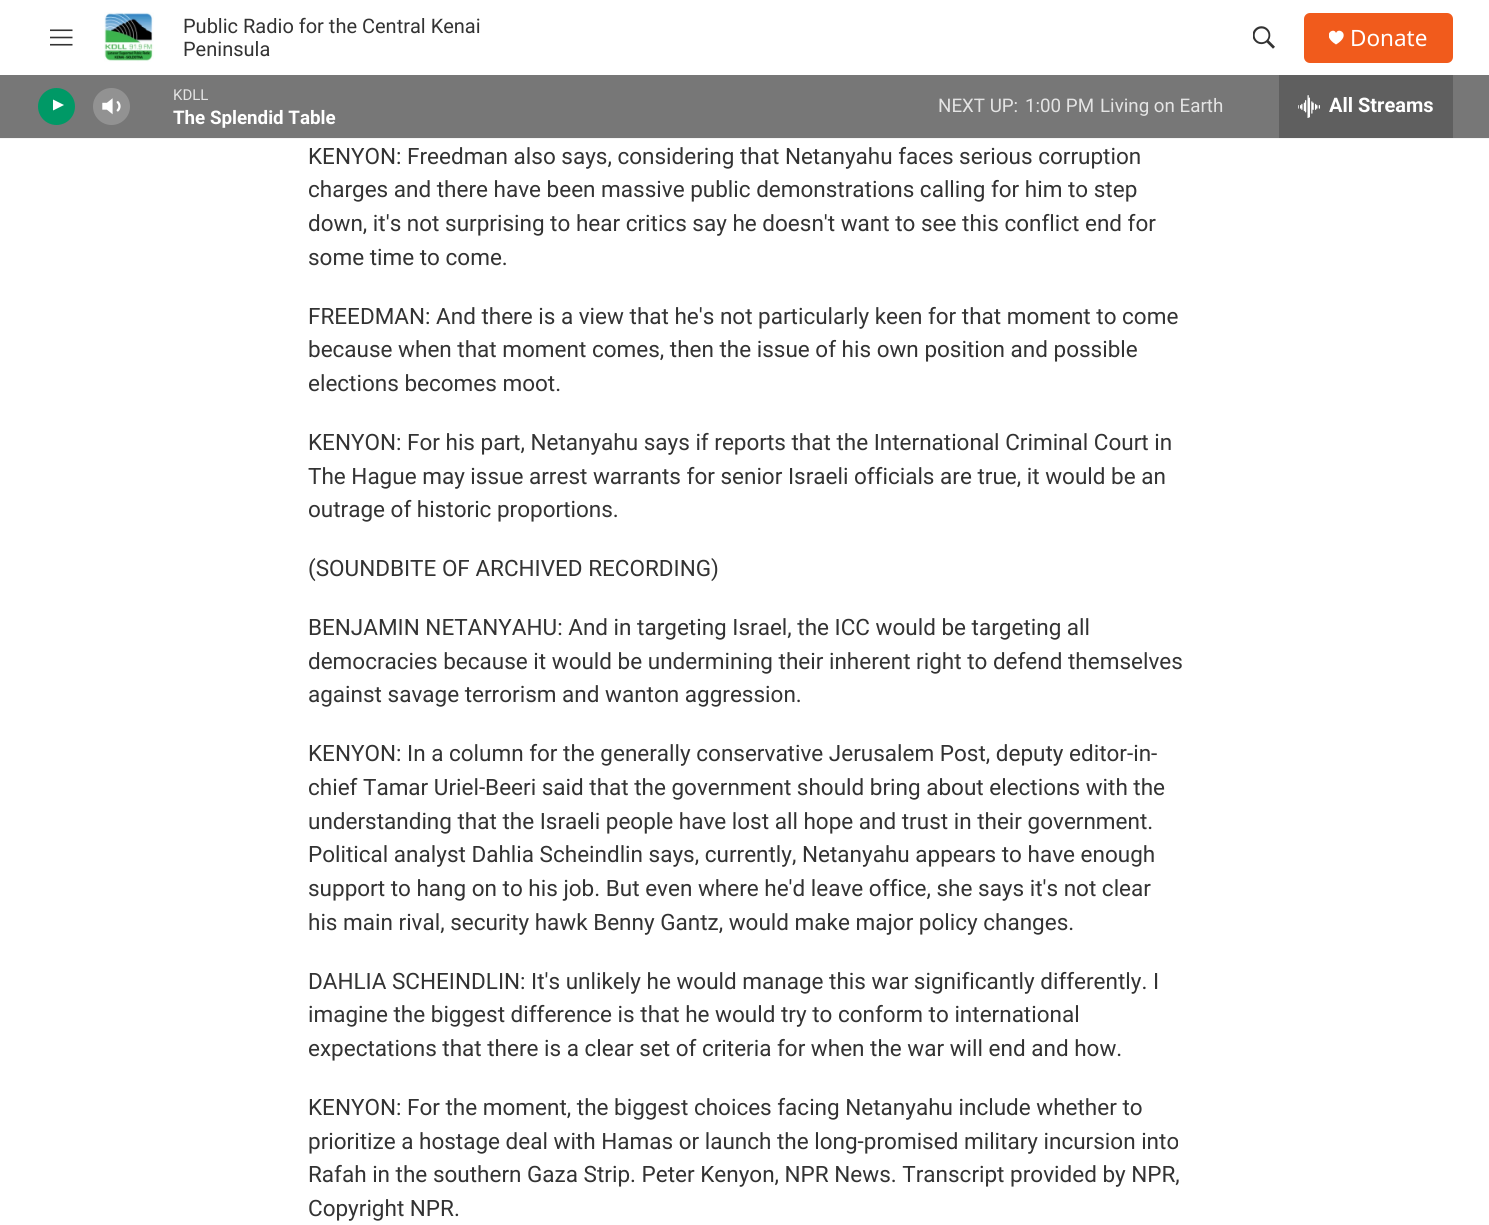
import math
import cairo

surface = cairo.ImageSurface(cairo.Format.RGB24, 1489, 1225)
ctx = cairo.Context(surface)
options = cairo.FontOptions()
options.set_hint_metrics(cairo.HintMetrics.OFF)
options.set_hint_style(cairo.HintStyle.NONE)
ctx.set_font_options(options)
ctx.set_miter_limit(4)


def ink(r, g, b):
    ctx.set_source_rgb(r / 255, g / 255, b / 255)


def write(x, y, s, family, size, color, bold=False, italic=False):
    ctx.select_font_face(family, cairo.FontSlant.ITALIC if italic else cairo.FontSlant.NORMAL, cairo.FontWeight.BOLD if bold else cairo.FontWeight.NORMAL)
    ctx.set_font_size(size)
    ink(*color)
    ctx.move_to(x, y)
    ctx.show_text(s)


def block(x, y, w, h, *color):
    ink(*color)
    ctx.rectangle(x, y, w, h)
    ctx.fill()


def round_path(x, y, w, h, r):
    ctx.new_sub_path()
    for i, (u, v) in enumerate([(x + w - r, y + h - r), (x + r, y + h - r), (x + r, y + r), (x + w - r, y + r)]):
        ctx.arc(u, v, r, i * math.pi / 2, (i + 1) * math.pi / 2)
    ctx.close_path()


def paste(path, x, y, w, h):
    ctx.save()
    ctx.set_source_surface(cairo.ImageSurface.create_from_png(path), x, y)
    ctx.rectangle(x, y, w, h)
    ctx.fill()
    ctx.restore()


s1 = dict(family="Roboto", size=20, color=(51, 51, 51))
s2 = dict(family="Noto Sans", size=22.5, color=(255, 255, 255))
s3 = dict(family="Roboto", size=15, color=(228, 228, 228))
s4 = dict(family="Roboto", size=18.75, color=(255, 255, 255), bold=True)
s5 = dict(family="Roboto", size=18.75, color=(228, 228, 228))
s6 = dict(family="Roboto", size=20, color=(255, 255, 255), bold=True)
s7 = dict(family="Roboto", size=22.5, color=(51, 51, 51))

ink(255, 255, 255)
ctx.paint()
block(0, 138, 1489, 1, 245, 245, 245)
paste("pic1.png", 50, 29, 23, 17)
paste("pic2.png", 104, 12, 50, 50)
write(183, 33, "Public Radio for the Central Kenai", **s1)
write(183, 56, "Peninsula", **s1)
paste("pic3.png", 1253, 26, 22, 23)
ink(241, 91, 28)
round_path(1304, 13, 149, 50, 6)
ctx.fill()
ctx.save()
ctx.rectangle(1329, 30, 15, 15)
ctx.clip()
ink(255, 255, 255)
ctx.new_path()
ctx.move_to(1336, 33)
ctx.curve_to(1334, 26.5, 1320.5, 35, 1336, 44.5)
ctx.curve_to(1352, 35, 1338.5, 26.5, 1336, 33)
ctx.close_path()
ctx.fill()
ctx.restore()
write(1350, 46, "Donate", **s2)
block(0, 75, 1489, 63, 119, 119, 119)
ink(0, 153, 102)
ctx.new_path()
ctx.arc(56.5, 106.5, 18.5, 0, 2 * math.pi)
ctx.fill()
ctx.save()
ctx.rectangle(53, 98, 14, 18)
ctx.clip()
ink(255, 255, 255)
ctx.new_path()
ctx.move_to(52, 99)
ctx.line_to(64, 105)
ctx.line_to(52, 111)
ctx.close_path()
ctx.fill()
ctx.restore()
paste("pic4.png", 102, 98, 19, 17)
ctx.set_source_rgba(1, 1, 1, 0.2)
ctx.arc(111.5, 106.5, 18.5, 0, 2 * math.pi)
ctx.fill()
write(173, 100, "KDLL", **s3)
write(173, 124, "The Splendid Table", **s4)
write(938, 112, "NEXT UP:", **s5)
write(1025, 112, "1:00 PM", **s5)
write(1100, 112, "Living on Earth", **s5)
block(1279, 75, 174, 63, 95, 95, 95)
paste("pic5.png", 1298, 95, 22, 23)
write(1329, 112, "All Streams", **s6)
write(308, 164, "KENYON: Freedman also says, considering that Netanyahu faces serious corruption", **s7)
write(308, 197, "charges and there have been massive public demonstrations calling for him to step", **s7)
write(308, 231, "down, it's not surprising to hear critics say he doesn't want to see this conflict end for", **s7)
write(308, 265, "some time to come.", **s7)
write(308, 324, "FREEDMAN: And there is a view that he's not particularly keen for that moment to come", **s7)
write(308, 357, "because when that moment comes, then the issue of his own position and possible", **s7)
write(308, 391, "elections becomes moot.", **s7)
write(308, 450, "KENYON: For his part, Netanyahu says if reports that the International Criminal Court in", **s7)
write(308, 484, "The Hague may issue arrest warrants for senior Israeli officials are true, it would be an", **s7)
write(308, 517, "outrage of historic proportions.", **s7)
write(308, 576, "(SOUNDBITE OF ARCHIVED RECORDING)", **s7)
write(308, 635, "BENJAMIN NETANYAHU: And in targeting Israel, the ICC would be targeting all", **s7)
write(308, 669, "democracies because it would be undermining their inherent right to defend themselves", **s7)
write(308, 702, "against savage terrorism and wanton aggression.", **s7)
write(308, 761, "KENYON: In a column for the generally conservative Jerusalem Post, deputy editor-in-", **s7)
write(308, 795, "chief Tamar Uriel-Beeri said that the government should bring about elections with the", **s7)
write(308, 829, "understanding that the Israeli people have lost all hope and trust in their government.", **s7)
write(308, 862, "Political analyst Dahlia Scheindlin says, currently, Netanyahu appears to have enough", **s7)
write(308, 896, "support to hang on to his job. But even where he'd leave office, she says it's not clear", **s7)
write(308, 930, "his main rival, security hawk Benny Gantz, would make major policy changes.", **s7)
write(308, 989, "DAHLIA SCHEINDLIN: It's unlikely he would manage this war significantly differently. I", **s7)
write(308, 1022, "imagine the biggest difference is that he would try to conform to international", **s7)
write(308, 1056, "expectations that there is a clear set of criteria for when the war will end and how.", **s7)
write(308, 1115, "KENYON: For the moment, the biggest choices facing Netanyahu include whether to", **s7)
write(308, 1149, "prioritize a hostage deal with Hamas or launch the long-promised military incursion into", **s7)
write(308, 1182, "Rafah in the southern Gaza Strip. Peter Kenyon, NPR News. Transcript provided by NPR,", **s7)
write(308, 1216, "Copyright NPR.", **s7)
surface.write_to_png("screenshot.png")
